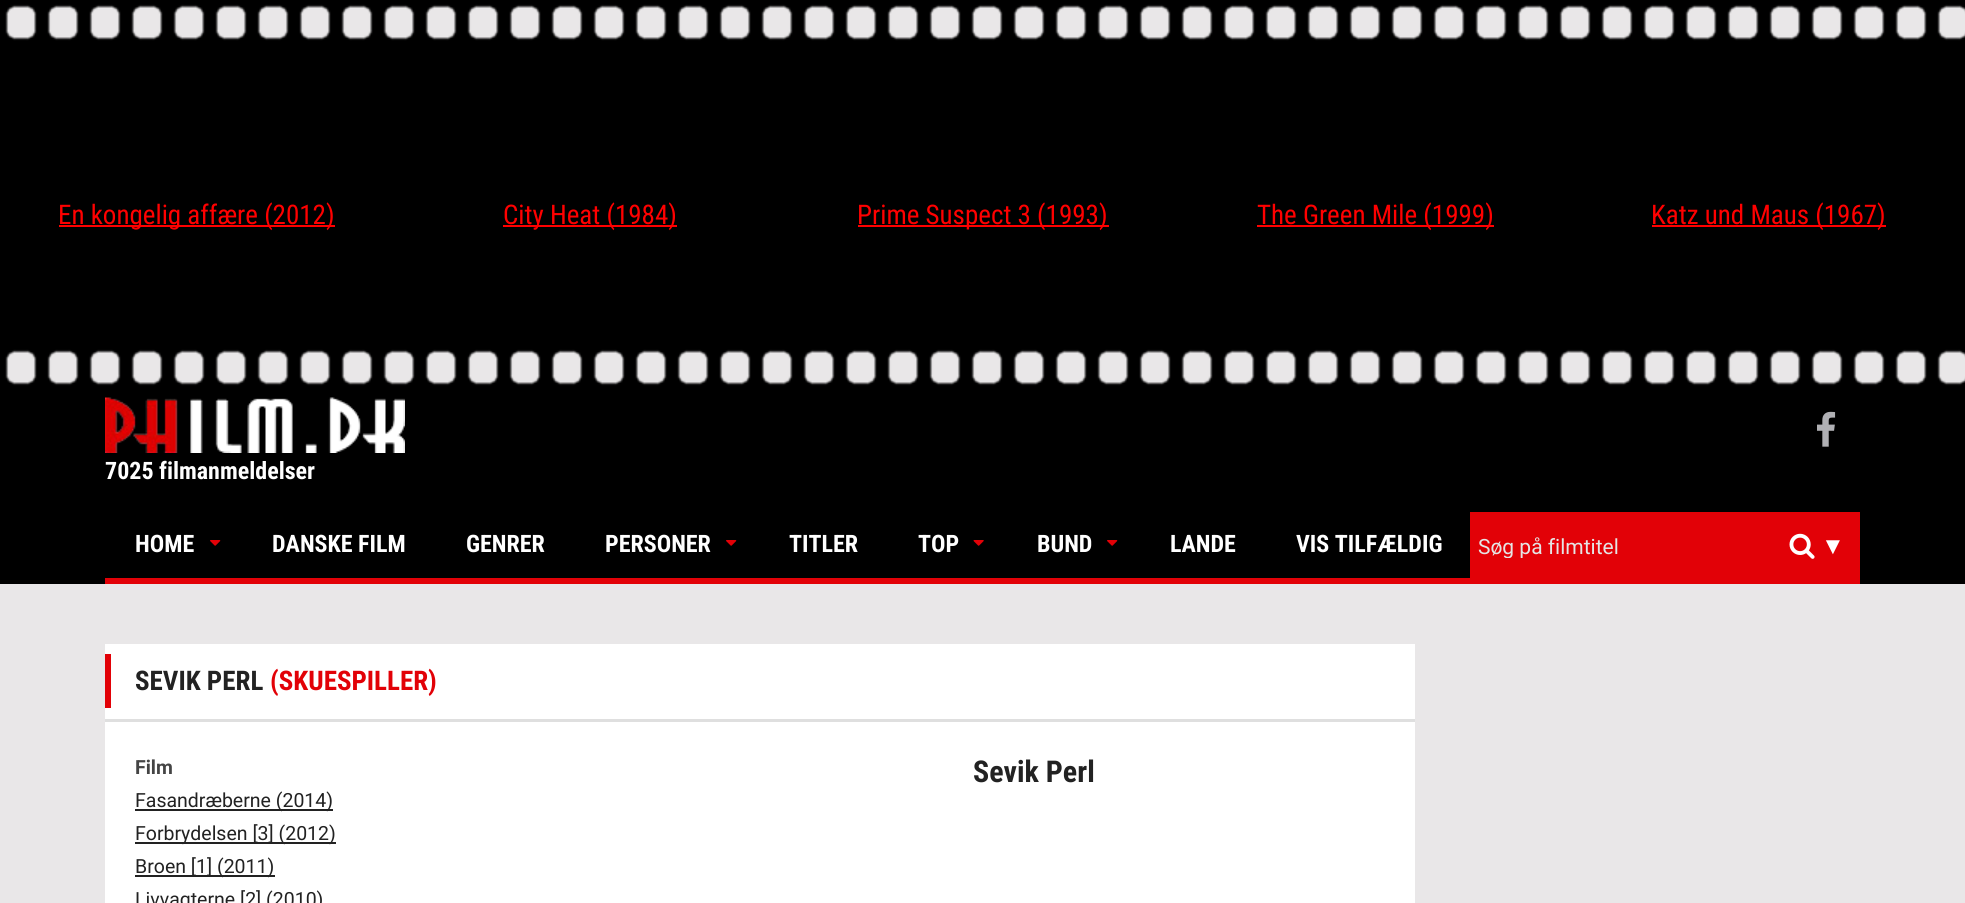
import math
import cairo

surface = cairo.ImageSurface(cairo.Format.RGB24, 1965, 903)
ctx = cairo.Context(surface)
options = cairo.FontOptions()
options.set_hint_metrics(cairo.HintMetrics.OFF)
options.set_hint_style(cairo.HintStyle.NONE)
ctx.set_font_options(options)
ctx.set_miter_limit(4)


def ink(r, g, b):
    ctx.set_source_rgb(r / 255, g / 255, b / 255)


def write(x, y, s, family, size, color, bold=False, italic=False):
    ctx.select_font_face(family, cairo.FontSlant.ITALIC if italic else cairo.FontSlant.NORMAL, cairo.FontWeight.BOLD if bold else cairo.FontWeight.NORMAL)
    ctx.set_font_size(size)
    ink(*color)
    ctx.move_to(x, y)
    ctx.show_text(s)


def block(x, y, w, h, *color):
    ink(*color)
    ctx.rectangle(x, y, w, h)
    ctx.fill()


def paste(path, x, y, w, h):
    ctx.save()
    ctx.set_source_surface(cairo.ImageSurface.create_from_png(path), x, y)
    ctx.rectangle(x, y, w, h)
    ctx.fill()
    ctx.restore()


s1 = dict(family="Roboto Condensed", size=27, color=(255, 0, 0))
s2 = dict(family="Roboto Condensed", size=24, color=(255, 255, 255), bold=True)
s3 = dict(family="Roboto", size=21, color=(229, 229, 229))
s4 = dict(family="Liberation Sans", size=24, color=(255, 255, 255), italic=True)
s5 = dict(family="Roboto Condensed", size=27, color=(34, 34, 34), bold=True)
s6 = dict(family="Roboto Condensed", size=27, color=(226, 1, 7), bold=True)
s7 = dict(family="Roboto", size=19.5, color=(68, 68, 68), bold=True)
s8 = dict(family="Roboto", size=19.5, color=(34, 34, 34))
s9 = dict(family="Roboto Condensed", size=30, color=(34, 34, 34), bold=True)

ink(233, 231, 232)
ctx.paint()
paste("pic1.png", 0, 0, 1965, 45)
block(0, 45, 1965, 300, 0, 0, 0)
block(59, 225, 276, 2, 255, 0, 0)
write(58, 224, "En kongelig affære (2012)", **s1)
block(503, 225, 174, 2, 255, 0, 0)
write(503, 224, "City Heat (1984)", **s1)
block(858, 225, 251, 2, 255, 0, 0)
write(857, 224, "Prime Suspect 3 (1993)", **s1)
block(1257, 225, 237, 2, 255, 0, 0)
write(1257, 224, "The Green Mile (1999)", **s1)
block(1652, 225, 234, 2, 255, 0, 0)
write(1651, 224, "Katz und Maus (1967)", **s1)
paste("pic2.png", 0, 345, 1965, 45)
block(0, 390, 1965, 194, 0, 0, 0)
paste("pic3.png", 1817, 411, 19, 36)
paste("pic4.png", 105, 397, 300, 56)
write(105, 479, "7025 filmanmeldelser", **s2)
block(105, 578, 1755, 6, 226, 1, 7)
write(135, 552, "HOME", **s2)
paste("pic5.png", 210, 540, 11, 6)
write(272, 552, "DANSKE FILM", **s2)
write(466, 552, "GENRER", **s2)
write(605, 552, "PERSONER", **s2)
paste("pic5.png", 726, 540, 11, 6)
write(789, 552, "TITLER", **s2)
write(918, 552, "TOP", **s2)
paste("pic6.png", 973, 540, 11, 6)
write(1037, 552, "BUND", **s2)
paste("pic5.png", 1107, 540, 11, 6)
write(1170, 552, "LANDE", **s2)
write(1296, 552, "VIS TILFÆLDIG", **s2)
block(1470, 512, 390, 66, 226, 1, 7)
ctx.save()
ctx.rectangle(1478, 534, 382, 24)
ctx.clip()
write(1478, 554, "Søg på filmtitel", **s3)
ctx.restore()
paste("pic7.png", 1789, 533, 26, 26)
write(1821, 554, "▼", **s4)
block(105, 644, 1310, 259, 255, 255, 255)
block(105, 719, 1310, 3, 223, 223, 223)
block(105, 654, 6, 54, 226, 1, 7)
write(135, 690, "SEVIK PERL", **s5)
write(270, 690, "(SKUESPILLER)", **s6)
write(135, 774, "Film", **s7)
block(135, 809, 198, 2, 34, 34, 34)
write(135, 807, "Fasandræberne (2014)", **s8)
block(135, 842, 201, 2, 34, 34, 34)
write(135, 840, "Forbrydelsen [3] (2012)", **s8)
block(135, 875, 140, 2, 34, 34, 34)
write(135, 873, "Broen [1] (2011)", **s8)
write(135, 906, "Livvagterne [2] (2010)", **s8)
write(973, 782, "Sevik Perl", **s9)
surface.write_to_png("screenshot.png")
